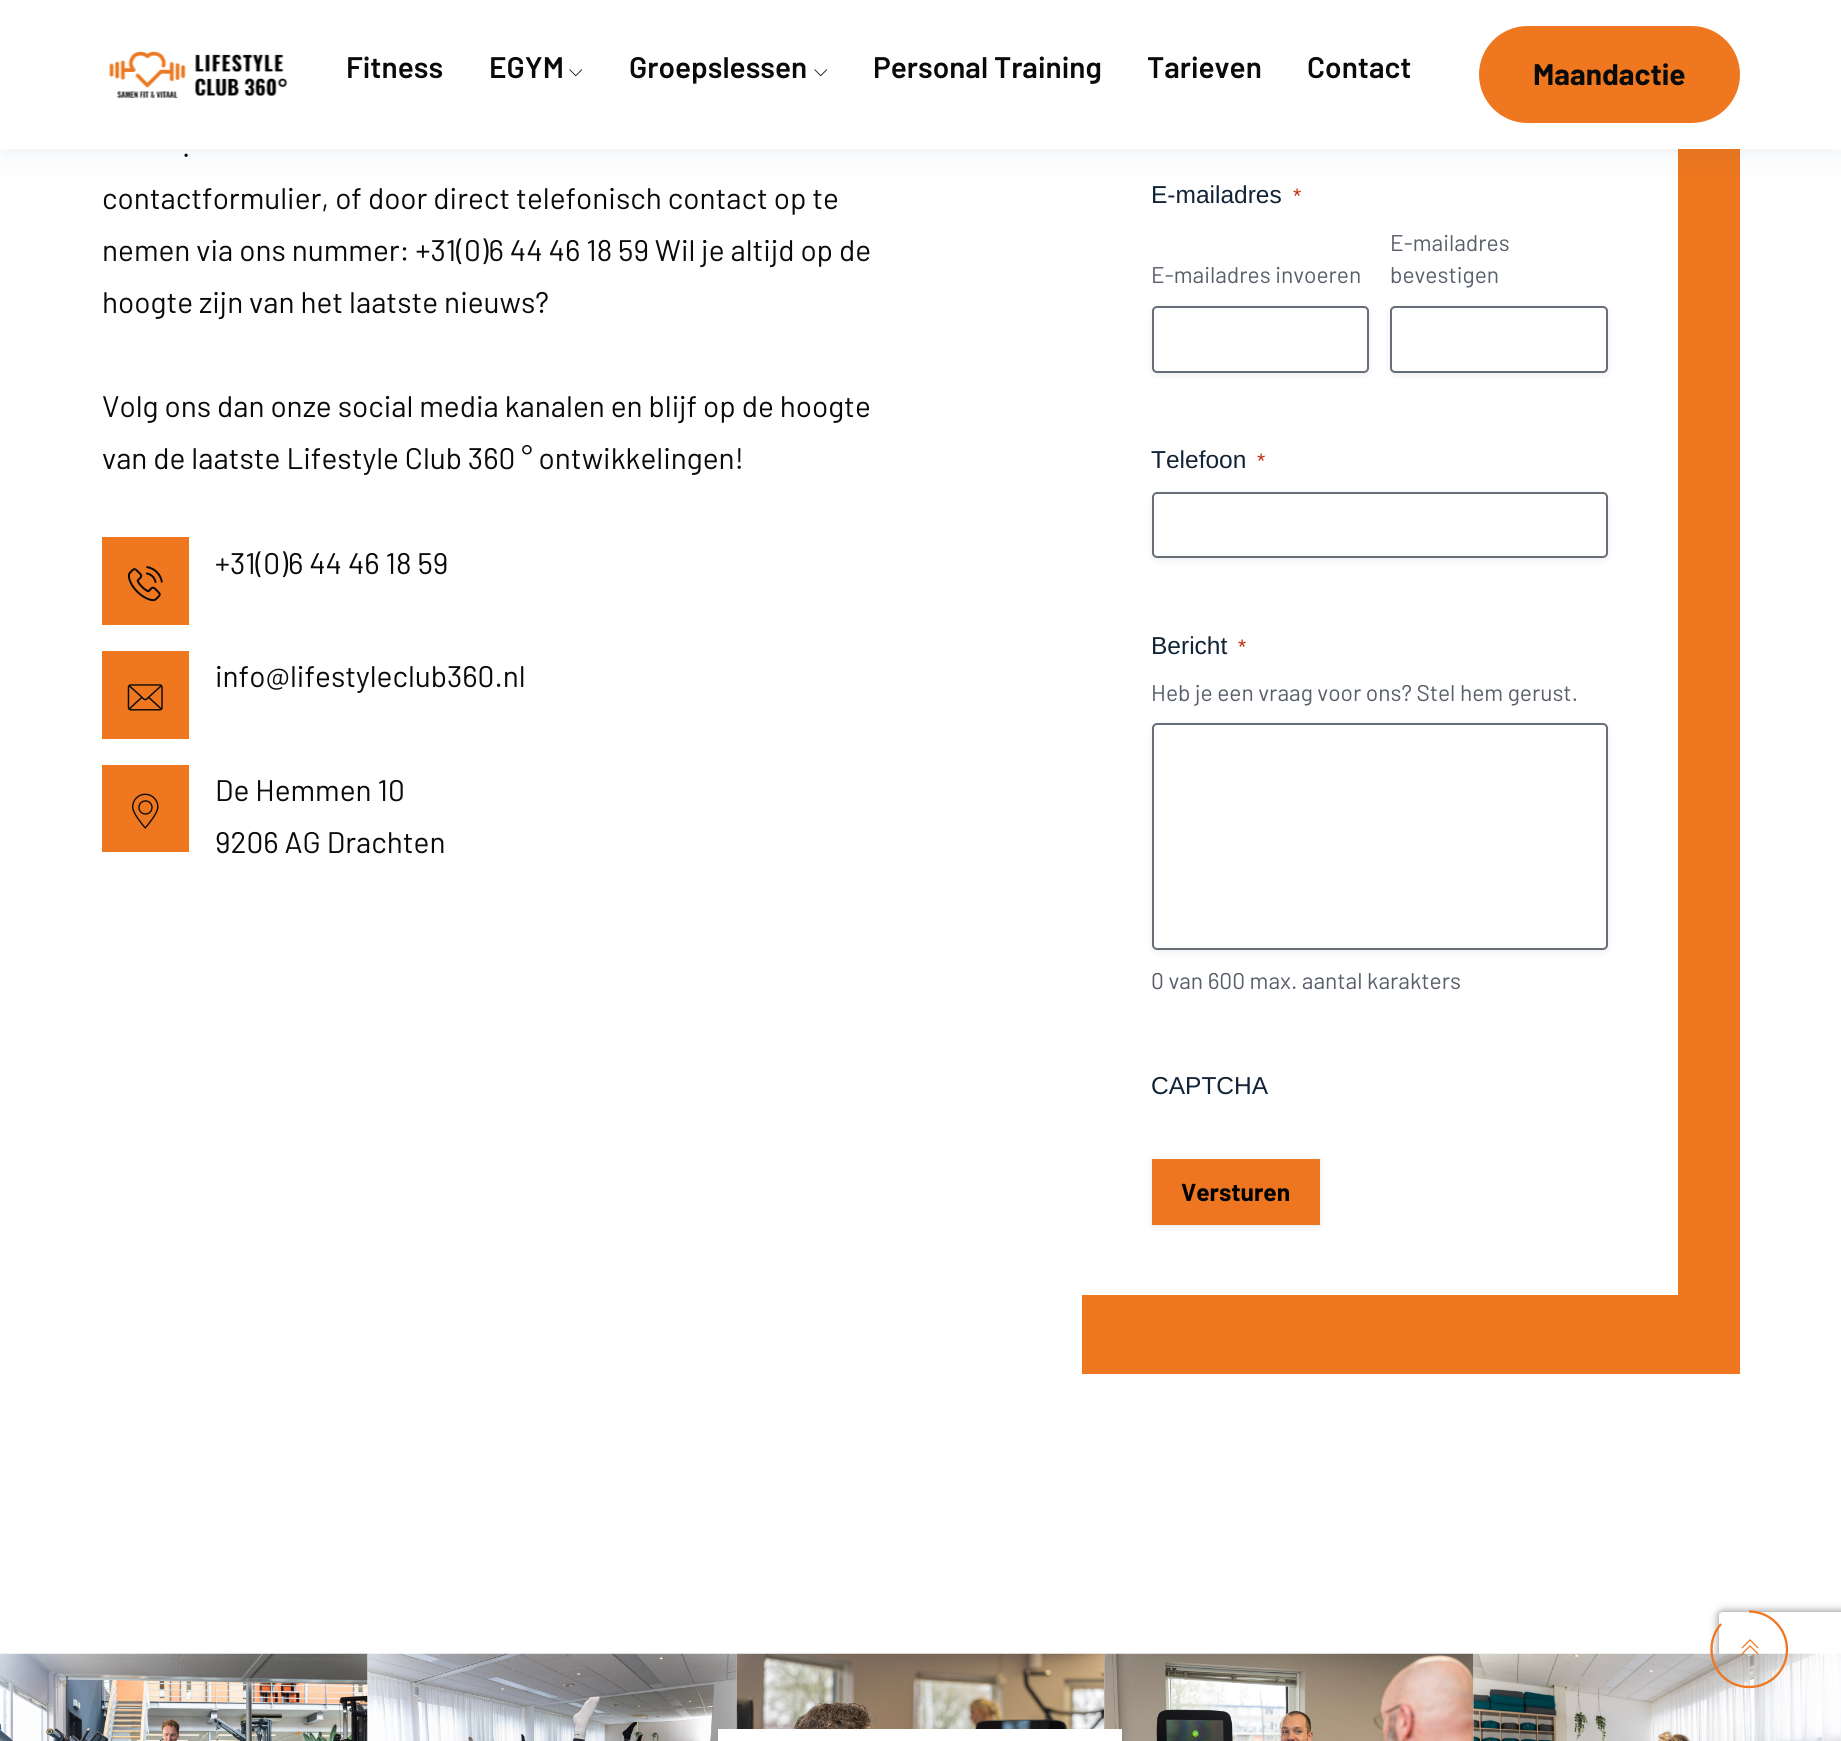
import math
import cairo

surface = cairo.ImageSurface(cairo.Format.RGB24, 1841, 1741)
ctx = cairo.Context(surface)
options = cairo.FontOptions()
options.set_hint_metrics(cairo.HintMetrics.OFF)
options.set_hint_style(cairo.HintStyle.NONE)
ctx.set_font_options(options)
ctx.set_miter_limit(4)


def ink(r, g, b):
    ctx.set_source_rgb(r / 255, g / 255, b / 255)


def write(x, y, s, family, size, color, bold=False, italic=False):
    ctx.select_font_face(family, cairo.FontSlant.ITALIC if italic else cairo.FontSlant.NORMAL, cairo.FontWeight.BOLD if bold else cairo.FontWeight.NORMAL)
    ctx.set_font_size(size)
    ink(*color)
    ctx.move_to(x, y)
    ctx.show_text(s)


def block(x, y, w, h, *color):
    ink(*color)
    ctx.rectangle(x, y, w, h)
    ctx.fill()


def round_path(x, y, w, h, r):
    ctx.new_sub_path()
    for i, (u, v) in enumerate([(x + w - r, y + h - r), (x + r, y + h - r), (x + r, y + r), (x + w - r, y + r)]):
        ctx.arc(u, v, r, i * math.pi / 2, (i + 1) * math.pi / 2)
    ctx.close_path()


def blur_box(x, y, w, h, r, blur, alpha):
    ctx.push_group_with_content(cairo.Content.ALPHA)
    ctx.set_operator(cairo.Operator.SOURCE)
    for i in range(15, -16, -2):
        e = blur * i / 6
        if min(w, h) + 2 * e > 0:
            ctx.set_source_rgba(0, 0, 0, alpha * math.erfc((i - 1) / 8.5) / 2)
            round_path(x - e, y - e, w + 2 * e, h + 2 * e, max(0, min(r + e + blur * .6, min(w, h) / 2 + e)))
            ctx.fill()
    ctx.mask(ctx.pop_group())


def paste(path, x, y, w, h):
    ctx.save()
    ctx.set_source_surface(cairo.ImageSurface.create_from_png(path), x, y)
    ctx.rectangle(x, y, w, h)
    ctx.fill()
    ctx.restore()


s1 = dict(family="Barlow SemiBold", size=29.75, color=(10, 10, 10))
s2 = dict(family="Barlow", size=29.75, color=(10, 10, 10), bold=True)
s3 = dict(family="Barlow", size=29.75, color=(10, 10, 10))
s4 = dict(family="Liberation Sans", size=24.5, color=(17, 35, 55))
s5 = dict(family="Liberation Sans", size=21, color=(192, 43, 10))
s6 = dict(family="Barlow", size=22.75, color=(88, 94, 106))
s7 = dict(family="Barlow", size=24.5, color=(0, 0, 0), bold=True)

ink(255, 255, 255)
ctx.paint()
block(1678, 149, 62, 1146, 238, 119, 31)
ink(15, 36, 84)
blur_box(0, 9, 1841, 149, 0, 13, 0.05)
block(0, 0, 1841, 149, 255, 255, 255)
paste("pic1.png", 108, 51, 180, 48)
write(346, 78, "Fitness", **s1)
write(489, 78, "EGYM", **s1)
paste("pic2.png", 569, 69, 14, 8)
write(629, 78, "Groepslessen", **s1)
paste("pic2.png", 814, 69, 14, 8)
write(873, 78, "Personal Training", **s1)
write(1147, 78, "Tarieven", **s1)
write(1307, 78, "Contact", **s1)
gradient = cairo.LinearGradient(1188, -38, 1717, 187)
gradient.add_color_stop_rgba(0.5, 1, 1, 1, 1)
gradient.add_color_stop_rgba(0.5, 0.933, 0.467, 0.122, 1)
ctx.set_source(gradient)
round_path(1479, 26, 261, 97, 48.5)
ctx.fill()
write(1533, 85, "Maandactie", **s2)
write(182, 157, ".", **s3)
write(102, 209, "contactformulier, of door direct telefonisch contact op te", **s3)
write(102, 261, "nemen via ons nummer: +31(0)6 44 46 18 59 Wil je altijd op de", **s3)
write(102, 313, "hoogte zijn van het laatste nieuws?", **s3)
write(102, 417, "Volg ons dan onze social media kanalen en blijf op de hoogte", **s3)
write(102, 469, "van de laatste Lifestyle Club 360 ° ontwikkelingen!", **s3)
block(102, 537, 87, 88, 238, 119, 31)
paste("pic3.png", 127, 566, 36, 36)
write(215, 574, "+31(0)6 44 46 18 59", **s3)
block(102, 651, 87, 88, 238, 119, 31)
paste("pic4.png", 127, 684, 36, 27)
write(215, 687, "info@lifestyleclub360.nl", **s3)
block(102, 765, 87, 87, 238, 119, 31)
paste("pic5.png", 132, 793, 27, 36)
write(215, 801, "De Hemmen 10", **s3)
write(215, 853, "9206 AG Drachten", **s3)
block(1082, 1295, 658, 79, 238, 119, 31)
write(1151, 203, "E-mailadres", **s4)
write(1293, 203, "*", **s5)
write(1151, 283, "E-mailadres invoeren", **s6)
ink(18, 25, 97)
blur_box(1152, 308, 217, 67, 5, 3.5, 0.08)
ink(255, 255, 255)
round_path(1153, 307, 215, 65, 4)
ctx.fill_preserve()
ink(104, 110, 119)
ctx.stroke()
write(1390, 251, "E-mailadres", **s6)
write(1390, 283, "bevestigen", **s6)
ink(18, 25, 97)
blur_box(1390, 308, 218, 67, 5, 3.5, 0.08)
ink(255, 255, 255)
round_path(1391, 307, 216, 65, 4)
ctx.fill_preserve()
ink(104, 110, 119)
ctx.stroke()
write(1151, 468, "Telefoon", **s4)
write(1257, 468, "*", **s5)
ctx.save()
ctx.set_fill_rule(cairo.FillRule.EVEN_ODD)
ctx.new_path()
ctx.move_to(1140, 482)
ctx.line_to(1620, 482)
ctx.line_to(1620, 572)
ctx.line_to(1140, 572)
ctx.close_path()
ctx.move_to(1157, 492)
ctx.line_to(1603, 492)
ctx.curve_to(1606, 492, 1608, 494, 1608, 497)
ctx.line_to(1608, 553)
ctx.curve_to(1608, 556, 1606, 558, 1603, 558)
ctx.line_to(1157, 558)
ctx.curve_to(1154, 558, 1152, 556, 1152, 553)
ctx.line_to(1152, 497)
ctx.curve_to(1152, 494, 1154, 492, 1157, 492)
ctx.close_path()
ctx.clip()
ink(18, 25, 97)
blur_box(1152, 494, 456, 66, 5, 3.5, 0.08)
ctx.restore()
round_path(1153, 493, 454, 64, 4)
ink(104, 110, 119)
ctx.stroke()
write(1151, 654, "Bericht", **s4)
write(1238, 654, "*", **s5)
write(1151, 701, "Heb je een vraag voor ons? Stel hem gerust.", **s6)
ctx.save()
ctx.set_fill_rule(cairo.FillRule.EVEN_ODD)
ctx.new_path()
ctx.move_to(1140, 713)
ctx.line_to(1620, 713)
ctx.line_to(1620, 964)
ctx.line_to(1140, 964)
ctx.close_path()
ctx.move_to(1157, 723)
ctx.line_to(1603, 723)
ctx.curve_to(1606, 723, 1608, 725, 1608, 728)
ctx.line_to(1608, 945)
ctx.curve_to(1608, 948, 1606, 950, 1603, 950)
ctx.line_to(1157, 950)
ctx.curve_to(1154, 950, 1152, 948, 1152, 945)
ctx.line_to(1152, 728)
ctx.curve_to(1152, 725, 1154, 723, 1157, 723)
ctx.close_path()
ctx.clip()
ink(18, 25, 97)
blur_box(1152, 725, 456, 227, 5, 3.5, 0.08)
ctx.restore()
round_path(1153, 724, 454, 225, 4)
ink(104, 110, 119)
ctx.stroke()
write(1151, 989, "0 van 600 max. aantal karakters", **s6)
write(1151, 1094, "CAPTCHA", **s4)
ctx.save()
ctx.set_fill_rule(cairo.FillRule.EVEN_ODD)
ctx.new_path()
ctx.move_to(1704, 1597)
ctx.line_to(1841, 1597)
ctx.line_to(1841, 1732)
ctx.line_to(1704, 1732)
ctx.close_path()
ctx.move_to(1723, 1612)
ctx.line_to(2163, 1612)
ctx.curve_to(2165, 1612, 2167, 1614, 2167, 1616)
ctx.line_to(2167, 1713)
ctx.curve_to(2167, 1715, 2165, 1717, 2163, 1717)
ctx.line_to(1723, 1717)
ctx.curve_to(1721, 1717, 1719, 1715, 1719, 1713)
ctx.line_to(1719, 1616)
ctx.curve_to(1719, 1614, 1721, 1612, 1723, 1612)
ctx.close_path()
ctx.clip()
ink(128, 128, 128)
blur_box(1719, 1612, 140, 105, 4, 4.5, 1)
ctx.restore()
ink(18, 25, 97)
blur_box(1152, 1160, 168, 67, 0, 3.5, 0.08)
block(1152, 1159, 168, 66, 238, 118, 32)
write(1181, 1201, "Versturen", **s7)
paste("pic6.png", 0, 1653, 368, 88)
paste("pic7.png", 367, 1653, 370, 88)
paste("pic8.png", 736, 1653, 369, 76)
paste("pic9.png", 1104, 1653, 370, 88)
paste("pic10.png", 1473, 1653, 368, 88)
block(718, 1729, 404, 12, 255, 255, 255)
ctx.new_path()
ctx.move_to(1749, 1611.5)
ctx.curve_to(1770, 1611.5, 1787, 1628.5, 1787, 1649.5)
ctx.curve_to(1787, 1670.5, 1770, 1687, 1749, 1687)
ctx.curve_to(1728, 1687, 1711.5, 1670.5, 1711.5, 1649.5)
ctx.curve_to(1711.5, 1639.5, 1715, 1631, 1721, 1624)
ink(238, 119, 31)
ctx.set_line_width(2.3)
ctx.stroke()
paste("pic11.png", 1741, 1639, 18, 16)
surface.write_to_png("screenshot.png")
